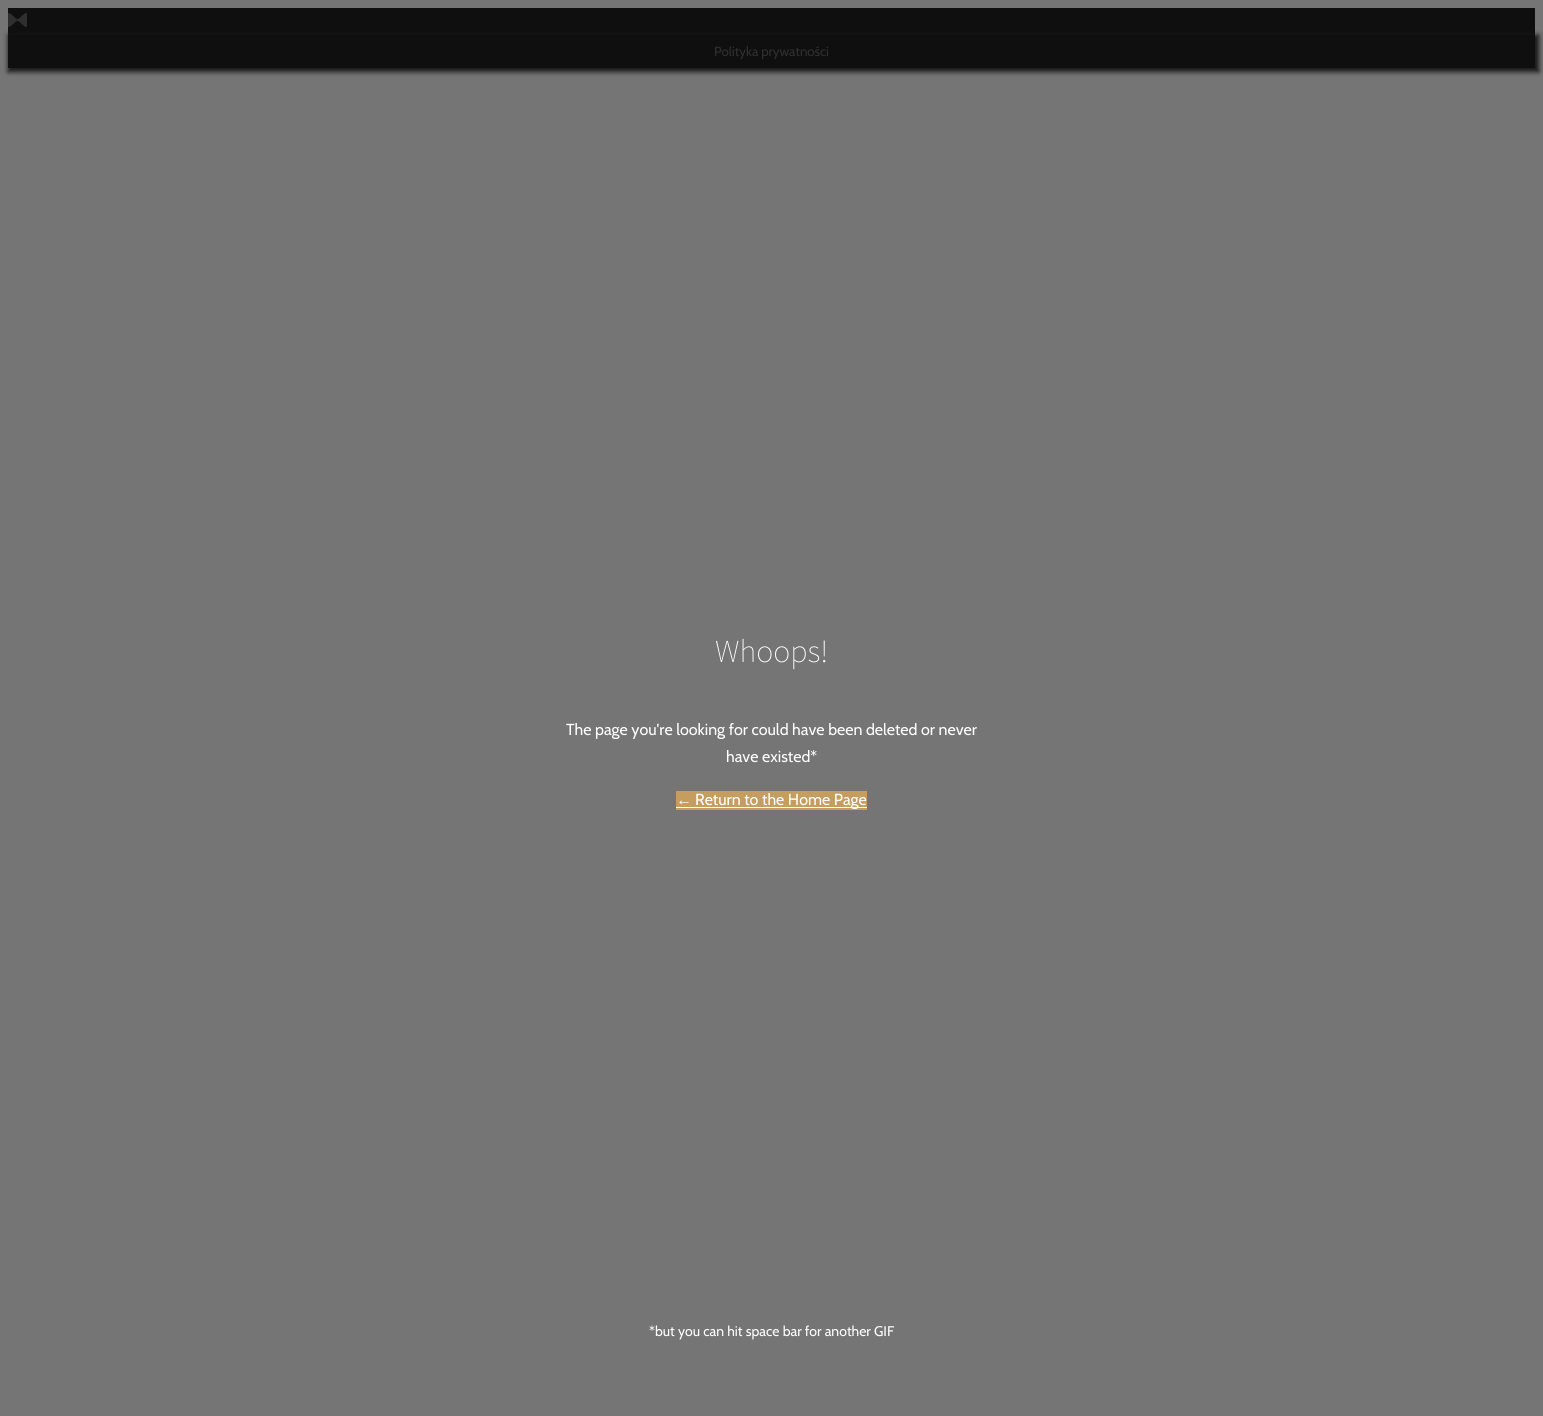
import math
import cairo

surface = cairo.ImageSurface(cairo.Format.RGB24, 1543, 1416)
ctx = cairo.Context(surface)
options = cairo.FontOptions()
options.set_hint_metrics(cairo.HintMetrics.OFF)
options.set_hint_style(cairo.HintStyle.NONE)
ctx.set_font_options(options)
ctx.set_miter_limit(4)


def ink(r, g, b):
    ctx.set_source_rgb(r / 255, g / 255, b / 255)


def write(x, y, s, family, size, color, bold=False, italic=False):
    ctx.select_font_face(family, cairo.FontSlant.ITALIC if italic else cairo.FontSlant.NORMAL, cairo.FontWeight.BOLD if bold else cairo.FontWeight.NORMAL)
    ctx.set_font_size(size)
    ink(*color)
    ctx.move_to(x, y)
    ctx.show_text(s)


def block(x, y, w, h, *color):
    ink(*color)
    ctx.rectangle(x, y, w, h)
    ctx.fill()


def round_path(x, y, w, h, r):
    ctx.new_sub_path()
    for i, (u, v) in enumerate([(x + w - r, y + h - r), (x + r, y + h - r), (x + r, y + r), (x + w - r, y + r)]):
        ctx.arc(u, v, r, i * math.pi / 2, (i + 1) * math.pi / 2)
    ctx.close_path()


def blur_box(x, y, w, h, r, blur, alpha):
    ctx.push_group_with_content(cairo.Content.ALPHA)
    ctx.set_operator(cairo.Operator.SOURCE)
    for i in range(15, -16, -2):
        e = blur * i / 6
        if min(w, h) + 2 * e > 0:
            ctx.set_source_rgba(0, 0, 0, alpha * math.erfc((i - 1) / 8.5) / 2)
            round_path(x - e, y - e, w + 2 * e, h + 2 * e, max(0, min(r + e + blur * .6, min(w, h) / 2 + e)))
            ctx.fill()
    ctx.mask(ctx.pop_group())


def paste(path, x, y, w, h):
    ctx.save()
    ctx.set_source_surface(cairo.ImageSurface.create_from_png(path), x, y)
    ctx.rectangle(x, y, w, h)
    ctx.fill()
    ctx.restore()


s1 = dict(family="Cabin", size=13.25, color=(48, 47, 47))
s2 = dict(family="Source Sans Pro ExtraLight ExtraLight", size=32, color=(255, 255, 255))
s3 = dict(family="Cabin", size=16, color=(255, 255, 255))
s4 = dict(family="Liberation Serif", size=16, color=(255, 255, 255))
s5 = dict(family="Cabin", size=14, color=(255, 255, 255))

ink(118, 117, 117)
ctx.paint()
block(8, 8, 1527, 60, 16, 15, 15)
ctx.save()
ctx.set_fill_rule(cairo.FillRule.EVEN_ODD)
ctx.new_path()
ctx.move_to(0, 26)
ctx.line_to(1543, 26)
ctx.line_to(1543, 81)
ctx.line_to(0, 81)
ctx.close_path()
ctx.move_to(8, 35)
ctx.line_to(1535, 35)
ctx.line_to(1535, 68)
ctx.line_to(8, 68)
ctx.close_path()
ctx.clip()
ink(24, 24, 24)
blur_box(8, 35, 1531, 37, 0, 2.5, 1)
ctx.restore()
write(714, 56, "Polityka prywatności", **s1)
paste("pic1.png", 8, 13, 19, 14)
write(715, 662, "Whoops!", **s2)
write(566, 735, "The page you're looking for could have been deleted or never", **s3)
write(726, 762, "have existed*", **s3)
block(676, 791, 191, 19, 197, 157, 95)
write(676, 805, "←", **s4)
block(676, 807, 191, 1, 255, 255, 255)
write(695, 805, "Return to the Home Page", **s3)
write(649, 1336, "*but you can hit space bar for another GIF", **s5)
surface.write_to_png("screenshot.png")
